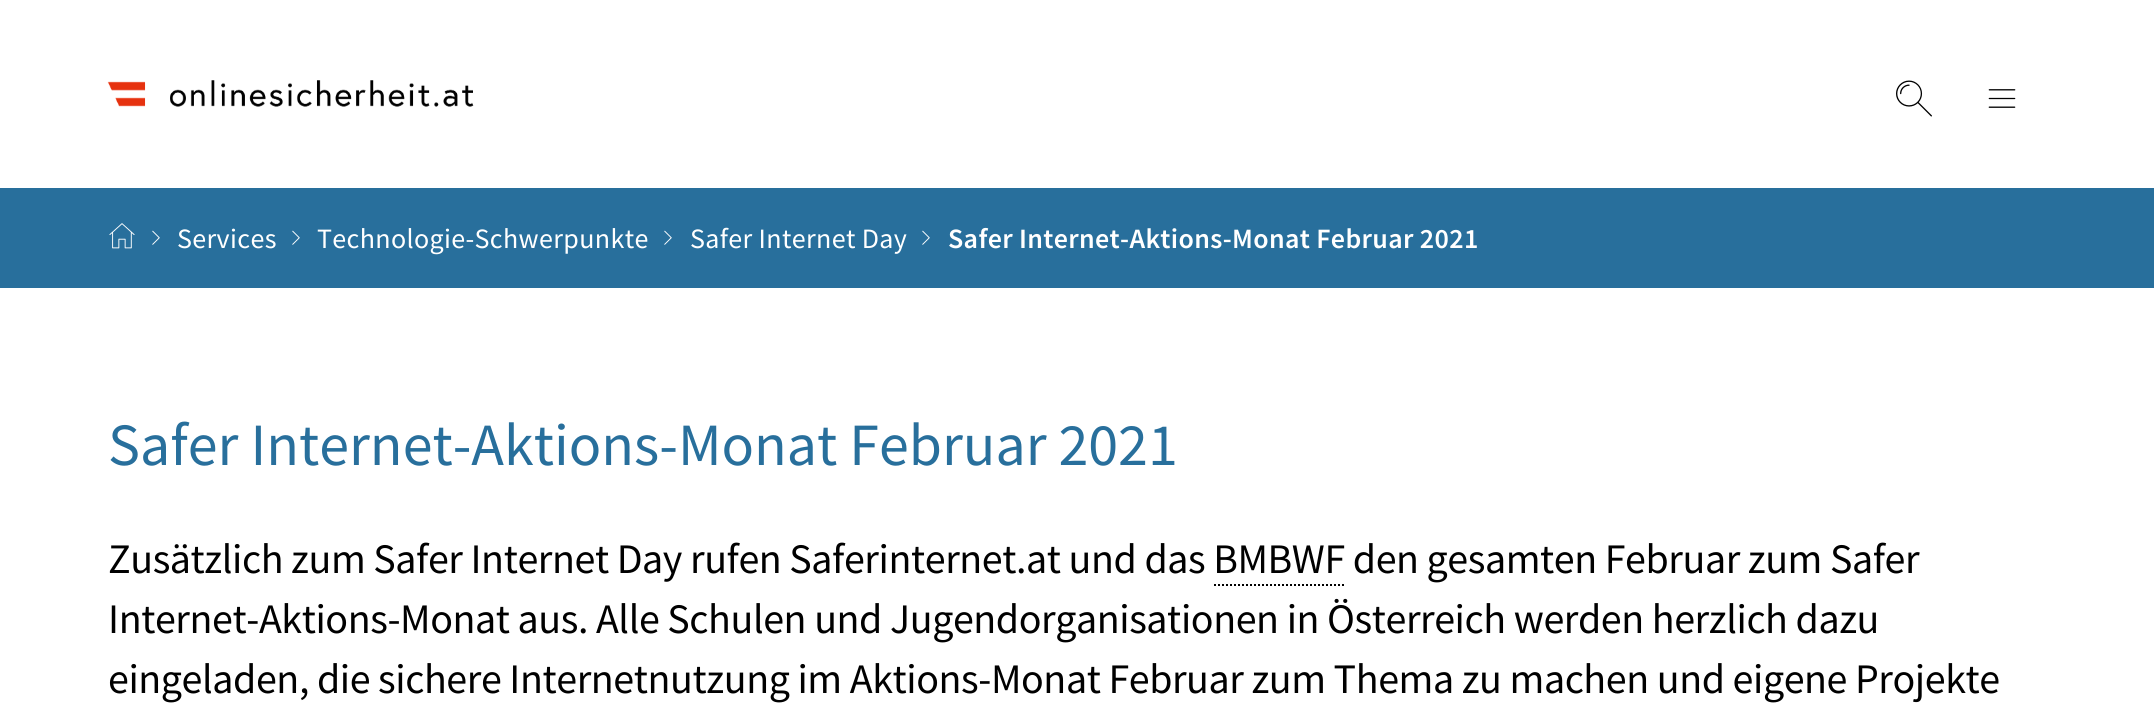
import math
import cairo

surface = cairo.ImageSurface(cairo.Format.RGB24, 2154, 728)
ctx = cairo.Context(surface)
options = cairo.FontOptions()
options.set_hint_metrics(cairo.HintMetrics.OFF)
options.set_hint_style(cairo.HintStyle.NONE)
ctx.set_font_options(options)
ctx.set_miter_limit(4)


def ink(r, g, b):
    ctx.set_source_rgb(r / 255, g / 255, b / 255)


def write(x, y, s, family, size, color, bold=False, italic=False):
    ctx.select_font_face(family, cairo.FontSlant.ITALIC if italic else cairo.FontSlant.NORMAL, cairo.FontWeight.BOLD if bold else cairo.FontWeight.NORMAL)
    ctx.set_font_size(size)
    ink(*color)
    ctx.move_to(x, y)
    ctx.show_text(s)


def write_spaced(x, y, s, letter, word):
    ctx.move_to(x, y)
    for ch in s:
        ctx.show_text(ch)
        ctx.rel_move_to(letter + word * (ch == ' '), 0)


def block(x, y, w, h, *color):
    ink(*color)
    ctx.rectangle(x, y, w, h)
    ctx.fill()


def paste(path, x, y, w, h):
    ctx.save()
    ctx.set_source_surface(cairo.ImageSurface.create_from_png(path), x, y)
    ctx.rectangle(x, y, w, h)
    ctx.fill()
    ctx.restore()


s1 = dict(family="Source Sans Pro", size=60, color=(40, 111, 156))

ink(255, 255, 255)
ctx.paint()
paste("pic1.png", 107, 80, 367, 27)
paste("pic2.png", 1896, 80, 36, 37)
paste("pic3.png", 1988, 89, 28, 19)
block(0, 188, 2154, 100, 40, 111, 156)
paste("pic4.png", 109, 223, 26, 26)
paste("pic5.png", 152, 230, 8, 15)
ctx.select_font_face("Source Sans Pro")
ctx.set_font_size(28)
ink(255, 255, 255)
write_spaced(177, 248, "Services", 0.35, 0)
paste("pic5.png", 292, 230, 8, 15)
write_spaced(317, 248, "Technologie-Schwerpunkte", 0.35, 0)
paste("pic5.png", 664, 230, 8, 15)
write_spaced(690, 248, "Safer Internet Day", 0.35, 0)
paste("pic5.png", 922, 230, 8, 15)
ctx.select_font_face("Source Sans Pro SemiBold")
write_spaced(948, 248, "Safer Internet-Aktions-Monat Februar 2021", 0.35, 0)
write(108, 465, "Safer Internet-Aktions-Monat Februar 2021", **s1)
ctx.set_font_size(42)
ink(0, 0, 0)
write_spaced(108, 573, "Zusätzlich zum Safer Internet Day rufen Saferinternet.at und das BMBWF den gesamten Februar zum Safer", -0.42, 0)
ctx.new_path()
ctx.move_to(1214, 585)
ctx.line_to(1346, 585)
ctx.set_dash([2, 2])
ctx.stroke()
write_spaced(108, 633, "Internet-Aktions-Monat aus. Alle Schulen und Jugendorganisationen in Österreich werden herzlich dazu", -0.42, 0)
write_spaced(108, 693, "eingeladen, die sichere Internetnutzung im Aktions-Monat Februar zum Thema zu machen und eigene Projekte", -0.42, 0)
surface.write_to_png("screenshot.png")
